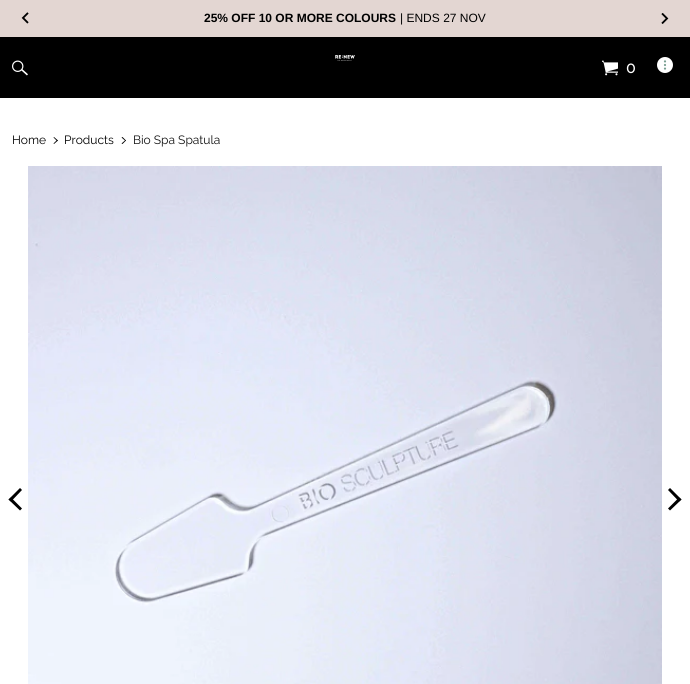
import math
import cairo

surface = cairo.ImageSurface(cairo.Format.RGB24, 690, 684)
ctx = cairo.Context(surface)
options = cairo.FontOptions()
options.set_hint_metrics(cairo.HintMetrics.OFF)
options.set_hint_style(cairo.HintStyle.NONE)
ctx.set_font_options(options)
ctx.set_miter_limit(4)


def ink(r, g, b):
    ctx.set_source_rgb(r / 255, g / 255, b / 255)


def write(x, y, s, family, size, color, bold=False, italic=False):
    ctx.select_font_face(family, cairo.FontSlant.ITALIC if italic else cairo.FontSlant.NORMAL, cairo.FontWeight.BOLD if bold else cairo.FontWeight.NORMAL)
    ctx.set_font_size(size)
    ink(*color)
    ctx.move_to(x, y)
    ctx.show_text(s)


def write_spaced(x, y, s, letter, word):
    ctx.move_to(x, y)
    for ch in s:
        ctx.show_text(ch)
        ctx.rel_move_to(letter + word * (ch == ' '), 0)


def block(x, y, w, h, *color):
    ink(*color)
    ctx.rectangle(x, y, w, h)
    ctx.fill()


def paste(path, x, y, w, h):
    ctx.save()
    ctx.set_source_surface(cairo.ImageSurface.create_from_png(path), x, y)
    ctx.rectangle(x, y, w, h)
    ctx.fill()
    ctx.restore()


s1 = dict(family="Liberation Sans", size=12, color=(0, 0, 0), bold=True)
s2 = dict(family="Liberation Sans", size=12, color=(0, 0, 0))
s3 = dict(family="Raleway", size=12, color=(0, 0, 0))
s4 = dict(family="Raleway", size=12, color=(17, 17, 17))

ink(255, 255, 255)
ctx.paint()
block(0, 0, 690, 37, 227, 214, 210)
paste("pic1.png", 21, 12, 8, 12)
paste("pic2.png", 661, 13, 8, 11)
write(204, 22, "25% OFF 10 OR MORE COLOURS", **s1)
write(400, 22, "| ENDS 27 NOV", **s2)
block(0, 37, 690, 61, 0, 0, 0)
paste("pic3.png", 12, 60, 16, 16)
paste("pic4.png", 335, 55, 20, 6)
paste("pic5.png", 602, 60, 16, 16)
ctx.select_font_face("Raleway Medium")
ctx.set_font_size(16)
ink(255, 255, 255)
write_spaced(626, 73, "0", 1, 0)
paste("pic6.png", 657, 57, 16, 16)
write(12, 144, "Home", **s3)
ctx.new_path()
ctx.move_to(53.5, 137.5)
ctx.line_to(54, 137)
ctx.line_to(58, 140.5)
ctx.line_to(57, 141)
ctx.close_path()
ctx.fill()
ctx.new_path()
ctx.move_to(53.5, 143.5)
ctx.line_to(57, 140)
ctx.line_to(58, 140.5)
ctx.line_to(54, 144)
ctx.close_path()
ctx.fill()
write(64, 144, "Products", **s3)
ctx.new_path()
ctx.move_to(121.5, 137.5)
ctx.line_to(122.5, 137)
ctx.line_to(126, 140.5)
ctx.line_to(125.5, 141)
ctx.close_path()
ctx.fill()
ctx.new_path()
ctx.move_to(121.5, 143.5)
ctx.line_to(125.5, 140)
ctx.line_to(126, 140.5)
ctx.line_to(122.5, 144)
ctx.close_path()
ctx.fill()
write(133, 144, "Bio Spa Spatula", **s4)
ink(0, 0, 0)
ctx.new_path()
ctx.move_to(20, 510.5)
ctx.line_to(8.5, 499.5)
ctx.line_to(11, 497.5)
ctx.line_to(22, 508.5)
ctx.close_path()
ctx.fill()
ctx.new_path()
ctx.move_to(11, 501.5)
ctx.line_to(8.5, 499.5)
ctx.line_to(20, 488)
ctx.line_to(22, 490)
ctx.close_path()
ctx.fill()
paste("pic7.png", 28, 166, 634, 518)
ctx.new_path()
ctx.move_to(670, 488)
ctx.line_to(681.5, 499.5)
ctx.line_to(679, 501.5)
ctx.line_to(668, 490)
ctx.close_path()
ctx.fill()
ctx.new_path()
ctx.move_to(679, 497.5)
ctx.line_to(681.5, 499.5)
ctx.line_to(670, 510.5)
ctx.line_to(668, 508.5)
ctx.close_path()
ctx.fill()
surface.write_to_png("screenshot.png")
